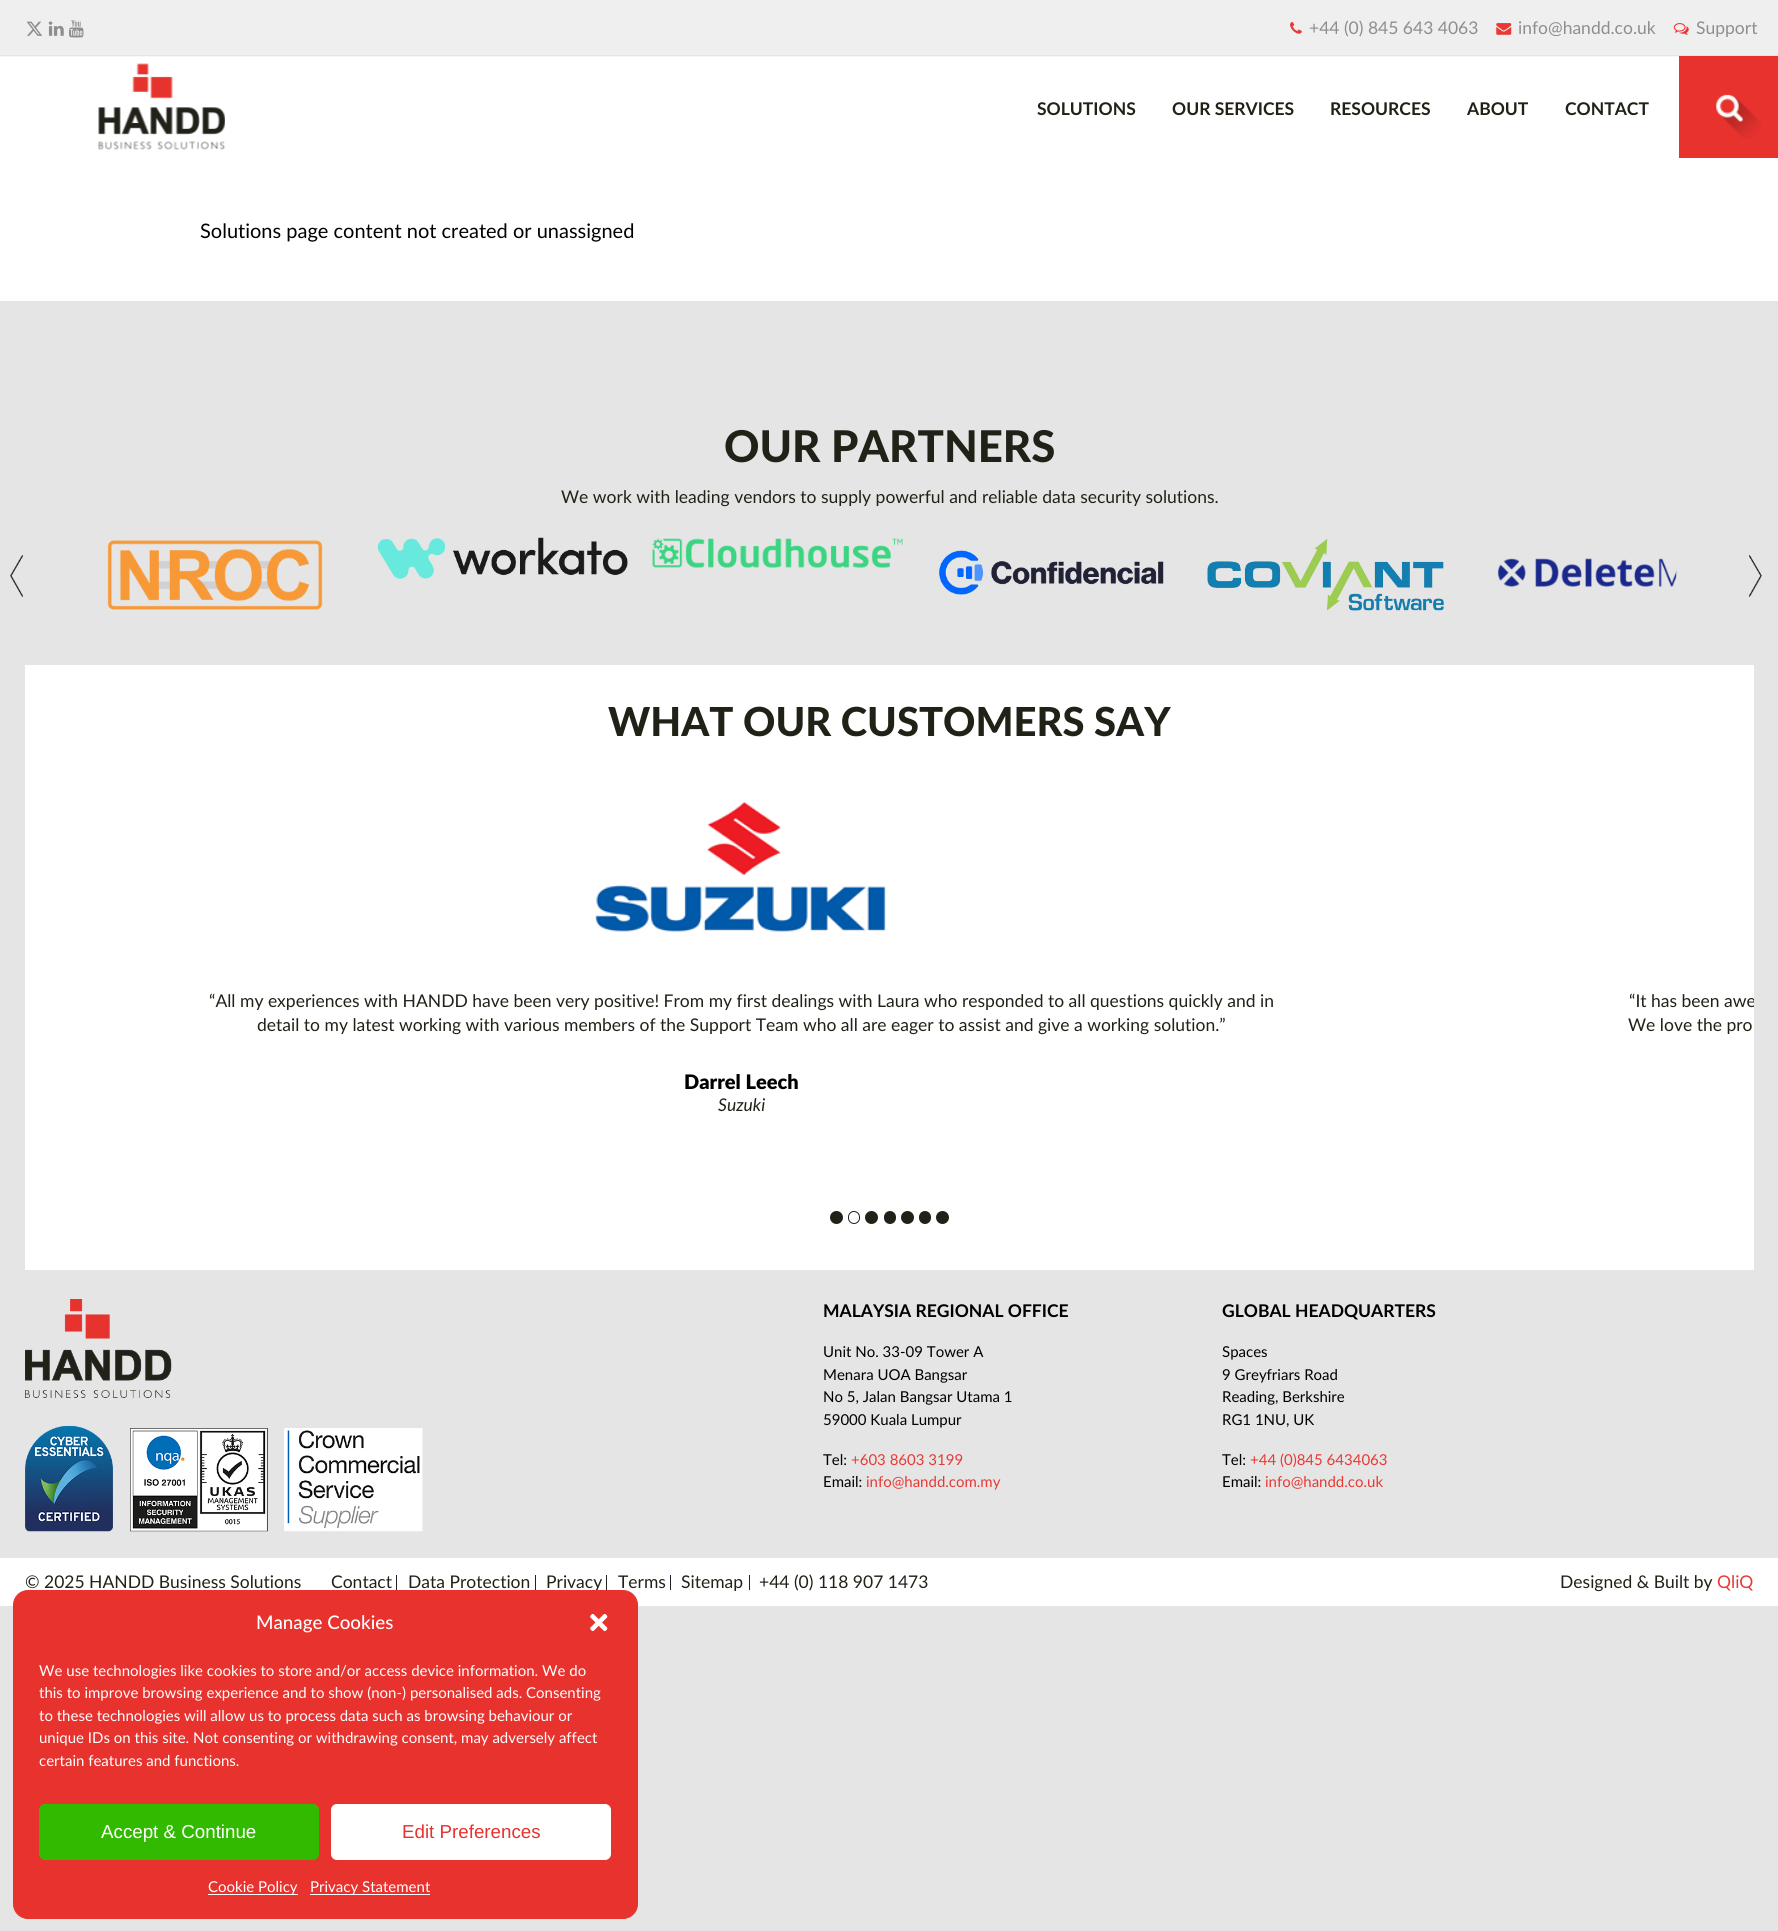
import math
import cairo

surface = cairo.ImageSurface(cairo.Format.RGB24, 1778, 1931)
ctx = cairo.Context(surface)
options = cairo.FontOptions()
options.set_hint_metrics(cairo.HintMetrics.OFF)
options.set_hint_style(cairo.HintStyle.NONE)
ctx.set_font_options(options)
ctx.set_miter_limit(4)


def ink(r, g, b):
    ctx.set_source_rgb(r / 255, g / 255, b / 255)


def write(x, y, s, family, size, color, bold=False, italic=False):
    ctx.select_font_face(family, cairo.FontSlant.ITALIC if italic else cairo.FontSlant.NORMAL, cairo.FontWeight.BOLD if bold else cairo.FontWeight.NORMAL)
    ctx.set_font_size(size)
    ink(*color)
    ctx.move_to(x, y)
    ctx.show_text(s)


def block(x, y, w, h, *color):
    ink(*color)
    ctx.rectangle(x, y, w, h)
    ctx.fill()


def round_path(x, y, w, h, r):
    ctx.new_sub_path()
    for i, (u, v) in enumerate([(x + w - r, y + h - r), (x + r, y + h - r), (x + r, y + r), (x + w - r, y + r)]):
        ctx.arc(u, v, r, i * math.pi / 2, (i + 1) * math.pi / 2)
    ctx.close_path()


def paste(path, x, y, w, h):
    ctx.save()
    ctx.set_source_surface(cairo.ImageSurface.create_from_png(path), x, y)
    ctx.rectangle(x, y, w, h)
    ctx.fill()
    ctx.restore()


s1 = dict(family="Lato", size=17.5, color=(142, 142, 145))
s2 = dict(family="Lato", size=17.5, color=(33, 34, 23), bold=True)
s3 = dict(family="Lato", size=20, color=(0, 0, 0))
s4 = dict(family="Lato Black", size=43.75, color=(33, 34, 23))
s5 = dict(family="Lato", size=17.5, color=(33, 34, 23))
s6 = dict(family="Lato Black", size=40, color=(33, 34, 23))
s7 = dict(family="Lato ExtraBold", size=20, color=(0, 0, 0))
s8 = dict(family="Lato", size=17.5, color=(33, 34, 23), italic=True)
s9 = dict(family="Lato", size=17.5, color=(0, 0, 0), bold=True)
s10 = dict(family="Lato", size=15, color=(0, 0, 0))
s11 = dict(family="Lato", size=15, color=(232, 57, 53))
s12 = dict(family="Lato", size=17.5, color=(232, 57, 53))
s13 = dict(family="Lato Medium", size=18.75, color=(255, 255, 255))
s14 = dict(family="Lato", size=15, color=(255, 255, 255))
s15 = dict(family="Liberation Sans", size=18.75, color=(255, 255, 255))
s16 = dict(family="Liberation Sans", size=18.75, color=(231, 50, 46))

ink(229, 229, 229)
ctx.paint()
block(0, 0, 1778, 55, 239, 239, 239)
paste("pic1.png", 26, 21, 17, 15)
paste("pic2.png", 48, 21, 16, 15)
paste("pic3.png", 69, 20, 15, 18)
paste("pic4.png", 1290, 22, 12, 12)
write(1309, 34, "+44 (0) 845 643 4063", **s1)
paste("pic5.png", 1496, 23, 16, 12)
write(1518, 34, "info@handd.co.uk", **s1)
paste("pic6.png", 1673, 23, 16, 12)
write(1696, 34, "Support", **s1)
block(0, 57, 1679, 101, 255, 255, 255)
block(0, 56, 1679, 1, 247, 247, 247)
paste("pic7.png", 98, 63, 127, 87)
write(1037, 115, "SOLUTIONS", **s2)
write(1172, 115, "OUR SERVICES", **s2)
write(1330, 115, "RESOURCES", **s2)
write(1467, 115, "ABOUT", **s2)
write(1565, 115, "CONTACT", **s2)
block(1679, 56, 99, 102, 231, 50, 46)
paste("pic8.png", 1716, 94, 45, 45)
block(0, 158, 1778, 143, 255, 255, 255)
write(200, 238, "Solutions page content not created or unassigned", **s3)
write(724, 462, "OUR PARTNERS", **s4)
write(561, 503, "We work with leading vendors to supply powerful and reliable data security solutions.", **s5)
paste("pic9.png", 107, 540, 216, 70)
paste("pic10.png", 377, 537, 251, 42)
paste("pic11.png", 652, 538, 251, 30)
paste("pic12.png", 939, 550, 225, 45)
paste("pic13.png", 1207, 538, 237, 73)
paste("pic14.png", 1497, 558, 180, 29)
paste("pic15.png", 10, 555, 13, 42)
paste("pic16.png", 1749, 555, 13, 42)
block(25, 665, 1729, 605, 255, 255, 255)
write(608, 736, "WHAT OUR CUSTOMERS SAY", **s6)
paste("pic17.png", 595, 802, 291, 130)
write(209, 1007, "“All my experiences with HANDD have been very positive! From my first dealings with Laura who responded to all questions quickly and in", **s5)
write(257, 1031, "detail to my latest working with various members of the Support Team who all are eager to assist and give a working solution.”", **s5)
write(684, 1089, "Darrel Leech", **s7)
write(718, 1111, "Suzuki", **s8)
ctx.save()
ctx.rectangle(25, 665, 1729, 605)
ctx.clip()
write(1629, 1007, "“It has been awe", **s5)
ctx.restore()
write(1628, 1031, "We love the pro", **s5)
ctx.new_path()
ctx.arc(836.5, 1217.5, 6.5, 0, 2 * math.pi)
ctx.fill()
round_path(848.5, 1211.5, 11, 12, 5.5)
ctx.set_line_width(1)
ctx.stroke()
ctx.arc(871.5, 1217.5, 6.5, 0, 2 * math.pi)
ctx.fill()
round_path(884, 1211, 12, 13, 6)
ctx.fill()
ctx.arc(907.5, 1217.5, 6.5, 0, 2 * math.pi)
ctx.fill()
round_path(919, 1211, 12, 13, 6)
ctx.fill()
ctx.arc(942.5, 1217.5, 6.5, 0, 2 * math.pi)
ctx.fill()
paste("pic18.png", 25, 1299, 398, 233)
write(823, 1317, "MALAYSIA REGIONAL OFFICE", **s9)
write(823, 1357, "Unit No. 33-09 Tower A", **s10)
write(823, 1380, "Menara UOA Bangsar", **s10)
write(823, 1402, "No 5, Jalan Bangsar Utama 1", **s10)
write(823, 1425, "59000 Kuala Lumpur", **s10)
write(823, 1465, "Tel:", **s10)
write(851, 1465, "+603 8603 3199", **s11)
write(823, 1487, "Email:", **s10)
write(866, 1487, "info@handd.com.my", **s11)
write(1222, 1317, "GLOBAL HEADQUARTERS", **s9)
write(1222, 1357, "Spaces", **s10)
write(1222, 1380, "9 Greyfriars Road", **s10)
write(1222, 1402, "Reading, Berkshire", **s10)
write(1222, 1425, "RG1 1NU, UK", **s10)
write(1222, 1465, "Tel:", **s10)
write(1250, 1465, "+44 (0)845 6434063", **s11)
write(1222, 1487, "Email:", **s10)
write(1265, 1487, "info@handd.co.uk", **s11)
block(0, 1558, 1778, 48, 255, 255, 255)
write(25, 1588, "© 2025 HANDD Business Solutions", **s5)
block(396, 1575, 1, 15, 33, 34, 39)
write(331, 1588, "Contact", **s5)
block(535, 1575, 1, 15, 33, 34, 39)
write(408, 1588, "Data Protection", **s5)
block(606, 1575, 1, 15, 33, 34, 39)
write(546, 1588, "Privacy", **s5)
block(670, 1575, 1, 15, 33, 34, 39)
write(618, 1588, "Terms", **s5)
block(749, 1575, 1, 15, 33, 34, 39)
write(681, 1588, "Sitemap", **s5)
write(759, 1588, "+44 (0) 118 907 1473", **s5)
write(1560, 1588, "Designed & Built by", **s5)
write(1717, 1588, "QliQ", **s12)
ink(231, 50, 46)
round_path(13.5, 1590.5, 624, 328, 14.5)
ctx.fill_preserve()
ctx.stroke()
write(256, 1629, "Manage Cookies", **s13)
paste("pic19.png", 590, 1613, 18, 19)
write(39, 1676, "We use technologies like cookies to store and/or access device information. We do", **s14)
write(39, 1698, "this to improve browsing experience and to show (non-) personalised ads. Consenting", **s14)
write(39, 1721, "to these technologies will allow us to process data such as browsing behaviour or", **s14)
write(39, 1743, "unique IDs on this site. Not consenting or withdrawing consent, may adversely affect", **s14)
write(39, 1766, "certain features and functions.", **s14)
ink(49, 186, 0)
round_path(39.5, 1804.5, 279, 55, 5.5)
ctx.fill_preserve()
ctx.stroke()
write(101, 1838, "Accept & Continue", **s15)
round_path(331.5, 1804.5, 279, 55, 5.5)
ctx.fill_preserve()
ctx.stroke()
write(402, 1838, "Edit Preferences", **s16)
block(208, 1894, 90, 1, 255, 255, 255)
write(208, 1892, "Cookie Policy", **s14)
block(310, 1894, 120, 1, 255, 255, 255)
write(310, 1892, "Privacy Statement", **s14)
surface.write_to_png("screenshot.png")
